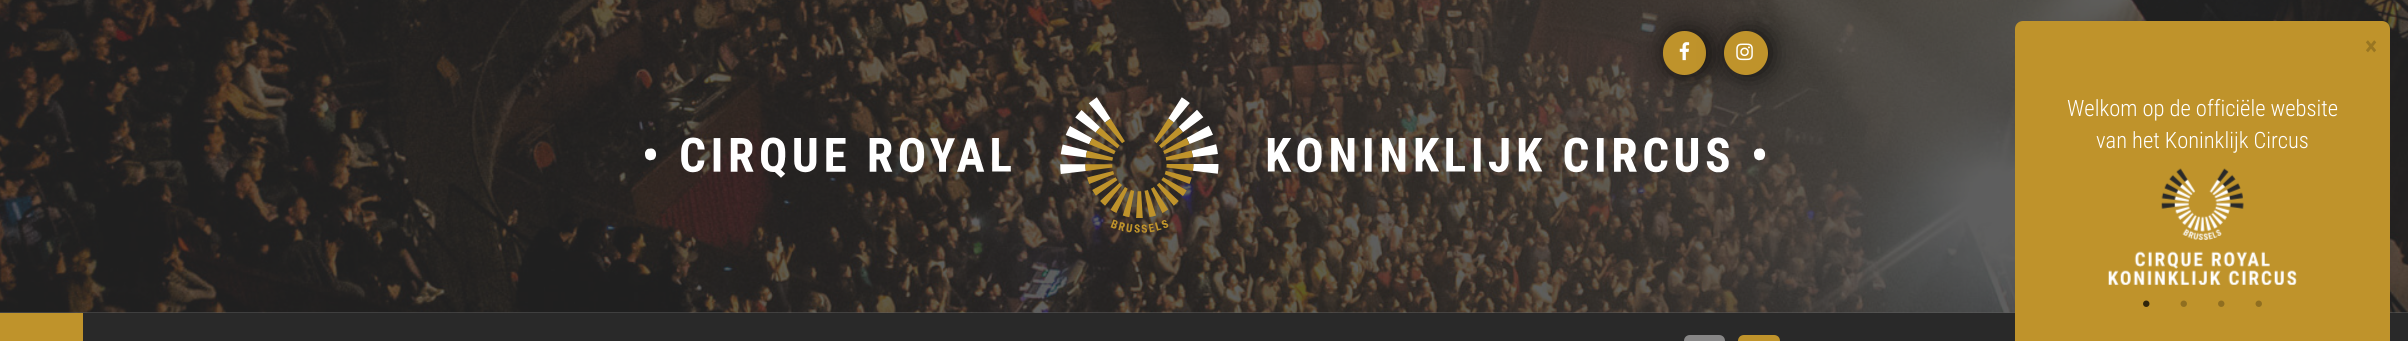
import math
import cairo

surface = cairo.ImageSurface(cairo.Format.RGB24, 2408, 341)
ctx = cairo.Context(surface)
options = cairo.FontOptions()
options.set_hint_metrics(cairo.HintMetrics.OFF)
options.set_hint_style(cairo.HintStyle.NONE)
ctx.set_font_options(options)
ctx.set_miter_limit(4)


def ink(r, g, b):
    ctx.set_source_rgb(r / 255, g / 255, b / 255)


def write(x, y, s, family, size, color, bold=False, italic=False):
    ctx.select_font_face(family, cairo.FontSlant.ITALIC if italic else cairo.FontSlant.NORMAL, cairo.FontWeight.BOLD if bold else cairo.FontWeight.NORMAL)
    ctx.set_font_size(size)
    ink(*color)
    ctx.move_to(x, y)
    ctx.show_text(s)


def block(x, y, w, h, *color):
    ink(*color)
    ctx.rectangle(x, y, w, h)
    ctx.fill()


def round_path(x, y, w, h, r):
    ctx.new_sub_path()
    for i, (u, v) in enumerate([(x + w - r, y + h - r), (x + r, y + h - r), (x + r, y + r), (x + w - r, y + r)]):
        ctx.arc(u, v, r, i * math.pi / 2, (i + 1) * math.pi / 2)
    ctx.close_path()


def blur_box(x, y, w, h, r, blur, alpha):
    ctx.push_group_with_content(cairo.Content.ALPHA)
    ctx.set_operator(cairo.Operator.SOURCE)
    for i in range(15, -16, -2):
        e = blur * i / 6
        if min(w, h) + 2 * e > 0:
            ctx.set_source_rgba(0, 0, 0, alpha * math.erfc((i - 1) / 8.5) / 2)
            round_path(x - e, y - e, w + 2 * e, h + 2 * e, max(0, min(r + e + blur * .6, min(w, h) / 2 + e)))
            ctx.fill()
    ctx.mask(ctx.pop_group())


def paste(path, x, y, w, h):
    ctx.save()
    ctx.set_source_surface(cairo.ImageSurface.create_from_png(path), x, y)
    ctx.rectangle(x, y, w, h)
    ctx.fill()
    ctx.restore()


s1 = dict(family="Roboto Condensed", size=26, color=(153, 118, 34), bold=True)
s2 = dict(family="Roboto Condensed Light", size=22.5, color=(255, 255, 255))

ink(95, 95, 95)
ctx.paint()
paste("pic1.png", 0, 0, 2408, 313)
paste("pic4.png", 645, 97, 1121, 136)
ink(0, 0, 0)
blur_box(1666, 31, 44, 44, 22, 13, 0.75)
ink(191, 147, 43)
round_path(1663, 31, 43, 44, 21.5)
ctx.fill()
paste("pic2.png", 1679, 42, 11, 19)
ink(0, 0, 0)
blur_box(1728, 31, 43, 44, 21.5, 13, 0.75)
ink(191, 147, 43)
ctx.arc(1746, 53, 22, 0, 2 * math.pi)
ctx.fill()
paste("pic3.png", 1736, 43, 17, 18)
block(83, 313, 2325, 28, 41, 41, 41)
block(0, 313, 83, 28, 191, 147, 43)
ink(135, 134, 134)
ctx.new_path()
ctx.move_to(1690, 335)
ctx.line_to(1719, 335)
ctx.curve_to(1722.5, 335, 1725, 337.5, 1725, 341)
ctx.curve_to(1725, 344.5, 1722.5, 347, 1719, 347)
ctx.line_to(1684, 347)
ctx.line_to(1684, 341)
ctx.curve_to(1684, 337.5, 1686.5, 335, 1690, 335)
ctx.close_path()
ctx.fill()
ink(191, 147, 43)
ctx.new_path()
ctx.move_to(1744, 335)
ctx.line_to(1774, 335)
ctx.curve_to(1777.5, 335, 1780, 337.5, 1780, 341)
ctx.curve_to(1780, 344.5, 1777.5, 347, 1774, 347)
ctx.line_to(1738, 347)
ctx.line_to(1738, 341)
ctx.curve_to(1738, 337.5, 1740.5, 335, 1744, 335)
ctx.close_path()
ctx.fill()
ctx.new_path()
ctx.move_to(2023, 21)
ctx.line_to(2382, 21)
ctx.curve_to(2386.5, 21, 2390, 24.5, 2390, 29)
ctx.line_to(2390, 341)
ctx.line_to(2015, 341)
ctx.line_to(2015, 29)
ctx.curve_to(2015, 24.5, 2018.5, 21, 2023, 21)
ctx.close_path()
ctx.fill()
write(2365, 55, "×", **s1)
write(2067, 116, "Welkom op de officiële website", **s2)
write(2096, 148, "van het Koninklijk Circus", **s2)
paste("pic5.png", 2108, 168, 189, 117)
paste("pic6.png", 2143, 300, 7, 7)
paste("pic7.png", 2180, 300, 7, 7)
paste("pic8.png", 2218, 300, 7, 7)
paste("pic7.png", 2255, 300, 7, 7)
surface.write_to_png("screenshot.png")
